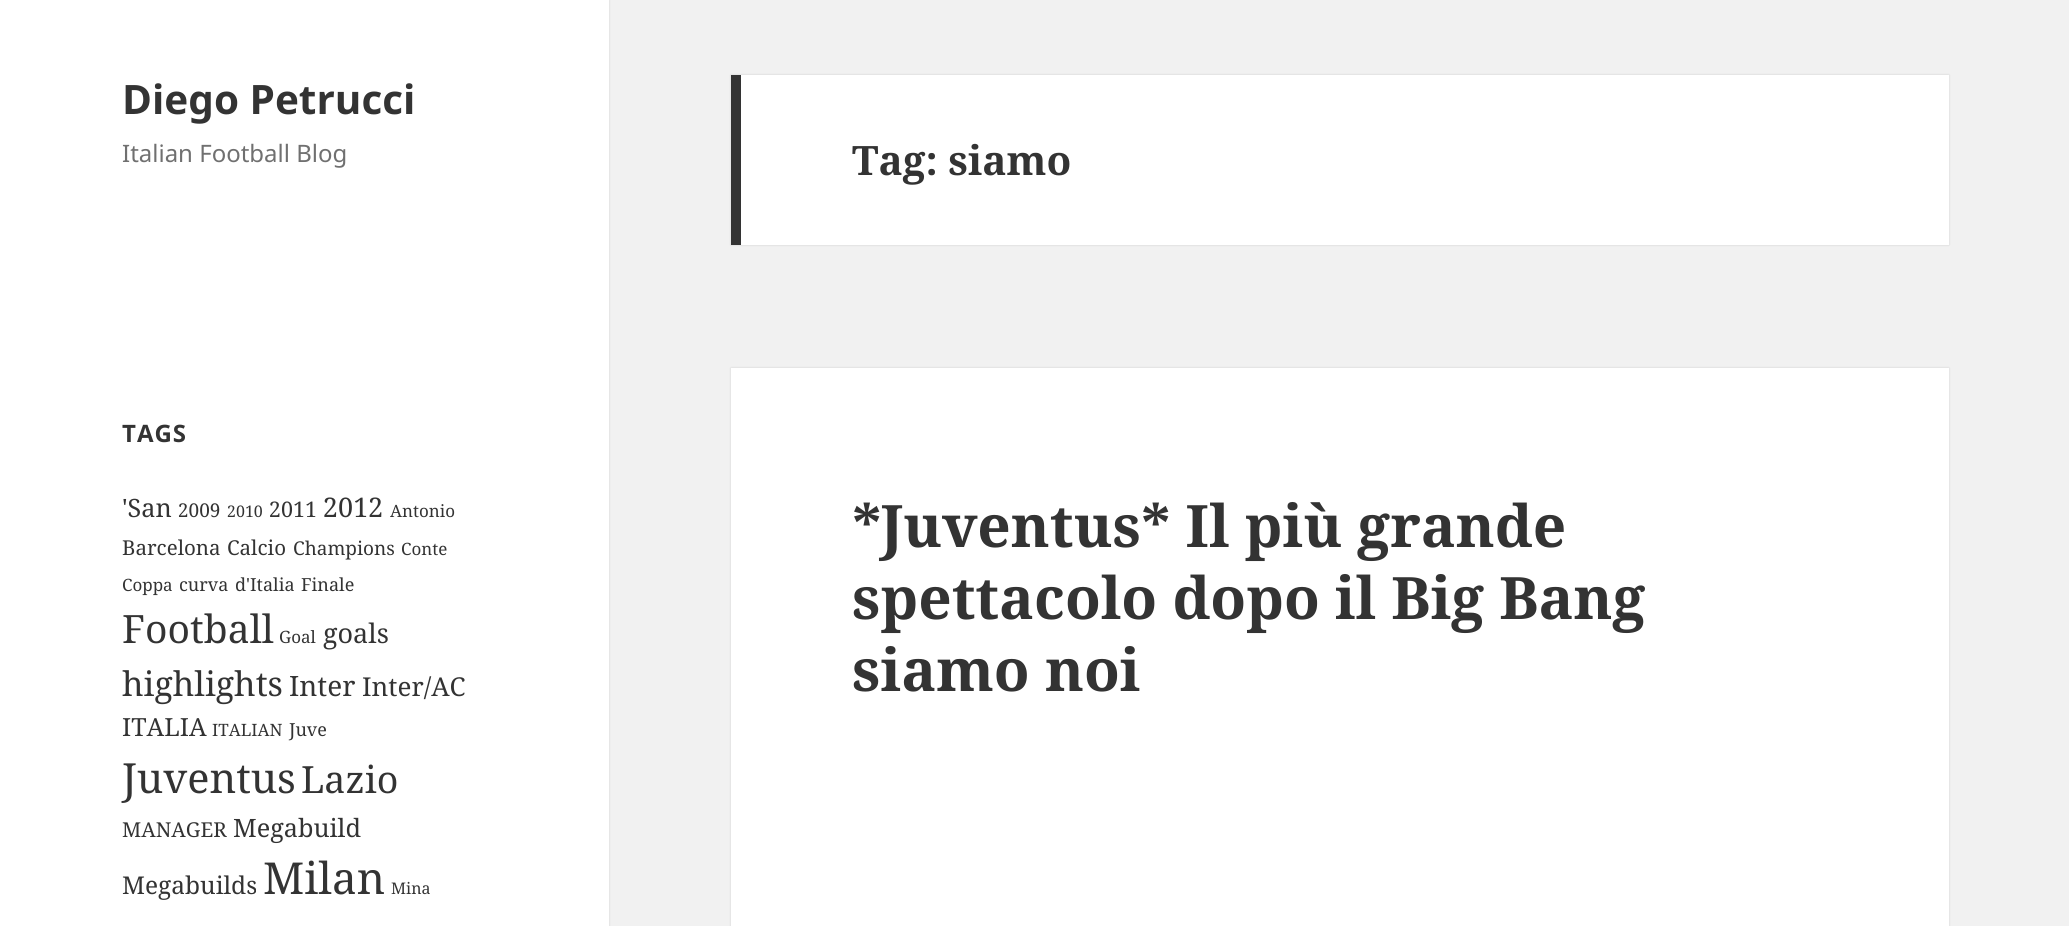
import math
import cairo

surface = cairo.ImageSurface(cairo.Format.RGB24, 2069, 926)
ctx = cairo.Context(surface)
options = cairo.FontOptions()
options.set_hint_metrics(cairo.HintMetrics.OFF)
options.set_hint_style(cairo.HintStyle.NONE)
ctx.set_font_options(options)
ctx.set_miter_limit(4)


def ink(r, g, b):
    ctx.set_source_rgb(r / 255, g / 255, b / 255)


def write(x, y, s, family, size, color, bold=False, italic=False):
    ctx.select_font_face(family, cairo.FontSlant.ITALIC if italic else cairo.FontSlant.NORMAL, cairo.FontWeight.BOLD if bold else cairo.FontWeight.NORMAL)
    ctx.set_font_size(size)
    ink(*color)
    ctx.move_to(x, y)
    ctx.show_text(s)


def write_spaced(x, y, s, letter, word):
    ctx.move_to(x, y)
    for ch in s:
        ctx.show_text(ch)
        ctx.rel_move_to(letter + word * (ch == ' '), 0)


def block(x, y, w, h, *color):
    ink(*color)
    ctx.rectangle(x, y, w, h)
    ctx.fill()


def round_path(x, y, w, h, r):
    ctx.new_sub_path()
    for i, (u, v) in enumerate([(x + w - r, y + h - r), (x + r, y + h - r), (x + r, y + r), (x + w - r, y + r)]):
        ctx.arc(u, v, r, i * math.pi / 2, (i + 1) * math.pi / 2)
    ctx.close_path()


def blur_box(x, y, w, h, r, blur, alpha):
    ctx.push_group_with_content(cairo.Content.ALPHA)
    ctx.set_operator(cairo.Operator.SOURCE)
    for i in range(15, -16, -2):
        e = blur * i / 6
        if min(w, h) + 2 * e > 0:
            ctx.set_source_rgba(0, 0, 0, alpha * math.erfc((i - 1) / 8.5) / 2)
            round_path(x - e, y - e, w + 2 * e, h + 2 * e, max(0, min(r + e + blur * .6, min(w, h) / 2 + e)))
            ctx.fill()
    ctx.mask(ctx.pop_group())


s1 = dict(family="Noto Sans", size=40.5, color=(51, 51, 51), bold=True)
s2 = dict(family="Noto Sans", size=24, color=(112, 112, 112))
s3 = dict(family="Noto Serif", size=25.25, color=(51, 51, 51))
s4 = dict(family="Noto Serif", size=19, color=(51, 51, 51))
s5 = dict(family="Noto Serif", size=16, color=(51, 51, 51))
s6 = dict(family="Noto Serif", size=21.5, color=(51, 51, 51))
s7 = dict(family="Noto Serif", size=27, color=(51, 51, 51))
s8 = dict(family="Noto Serif", size=17, color=(51, 51, 51))
s9 = dict(family="Noto Serif", size=20.5, color=(51, 51, 51))
s10 = dict(family="Noto Serif", size=18, color=(51, 51, 51))
s11 = dict(family="Noto Serif", size=39, color=(51, 51, 51))
s12 = dict(family="Noto Serif", size=34, color=(51, 51, 51))
s13 = dict(family="Noto Serif", size=28, color=(51, 51, 51))
s14 = dict(family="Noto Serif", size=26, color=(51, 51, 51))
s15 = dict(family="Noto Serif", size=25, color=(51, 51, 51))
s16 = dict(family="Noto Serif", size=41.5, color=(51, 51, 51))
s17 = dict(family="Noto Serif", size=37.5, color=(51, 51, 51))
s18 = dict(family="Noto Serif", size=24.5, color=(51, 51, 51))
s19 = dict(family="Noto Serif", size=44, color=(51, 51, 51))
s20 = dict(family="Noto Serif", size=40.5, color=(51, 51, 51), bold=True)
s21 = dict(family="Noto Serif", size=58.5, color=(51, 51, 51), bold=True)

ink(241, 241, 241)
ctx.paint()
ink(0, 0, 0)
blur_box(0, 0, 609, 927, 0, 1, 0.15)
block(0, 0, 609, 926, 255, 255, 255)
write(122, 114, "Diego Petrucci", **s1)
write(122, 162, "Italian Football Blog", **s2)
ctx.select_font_face("Noto Sans", cairo.FontSlant.NORMAL, cairo.FontWeight.BOLD)
ink(51, 51, 51)
write_spaced(122, 442, "TAGS", 1, 0)
write(122, 517, "'San", **s3)
write(178, 517, "2009", **s4)
write(227, 517, "2010", **s5)
write(269, 517, "2011", **s6)
write(323, 517, "2012", **s7)
write(390, 517, "Antonio", **s8)
write(122, 555, "Barcelona", **s9)
write(227, 555, "Calcio", **s9)
write(293, 555, "Champions", **s4)
write(401, 555, "Conte", **s8)
write(122, 591, "Coppa", **s8)
write(179, 591, "curva", **s10)
write(235, 591, "d'Italia", **s10)
write(301, 591, "Finale", **s10)
write(122, 643, "Football", **s11)
write(279, 643, "Goal", **s8)
write(323, 643, "goals", **s7)
write(122, 696, "highlights", **s12)
write(289, 696, "Inter", **s13)
write(362, 696, "Inter/AC", **s14)
write(122, 736, "ITALIA", **s15)
write(212, 736, "ITALIAN", **s8)
write(289, 736, "Juve", **s10)
write(122, 793, "Juventus", **s16)
write(301, 793, "Lazio", **s17)
write(122, 837, "MANAGER", **s9)
write(233, 837, "Megabuild", **s3)
write(122, 894, "Megabuilds", **s18)
write(263, 894, "Milan", **s19)
write(391, 894, "Mina", **s5)
ink(0, 0, 0)
blur_box(731, 75, 1218, 170, 0, 1, 0.15)
block(741, 75, 1208, 170, 255, 255, 255)
block(731, 75, 10, 170, 51, 51, 51)
write(852, 175, "Tag: siamo", **s20)
ink(0, 0, 0)
blur_box(731, 368, 1218, 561, 0, 1, 0.15)
block(731, 368, 1218, 558, 255, 255, 255)
write(852, 547, "*Juventus* Il più grande", **s21)
write(852, 619, "spettacolo dopo il Big Bang", **s21)
write(852, 691, "siamo noi", **s21)
surface.write_to_png("screenshot.png")
